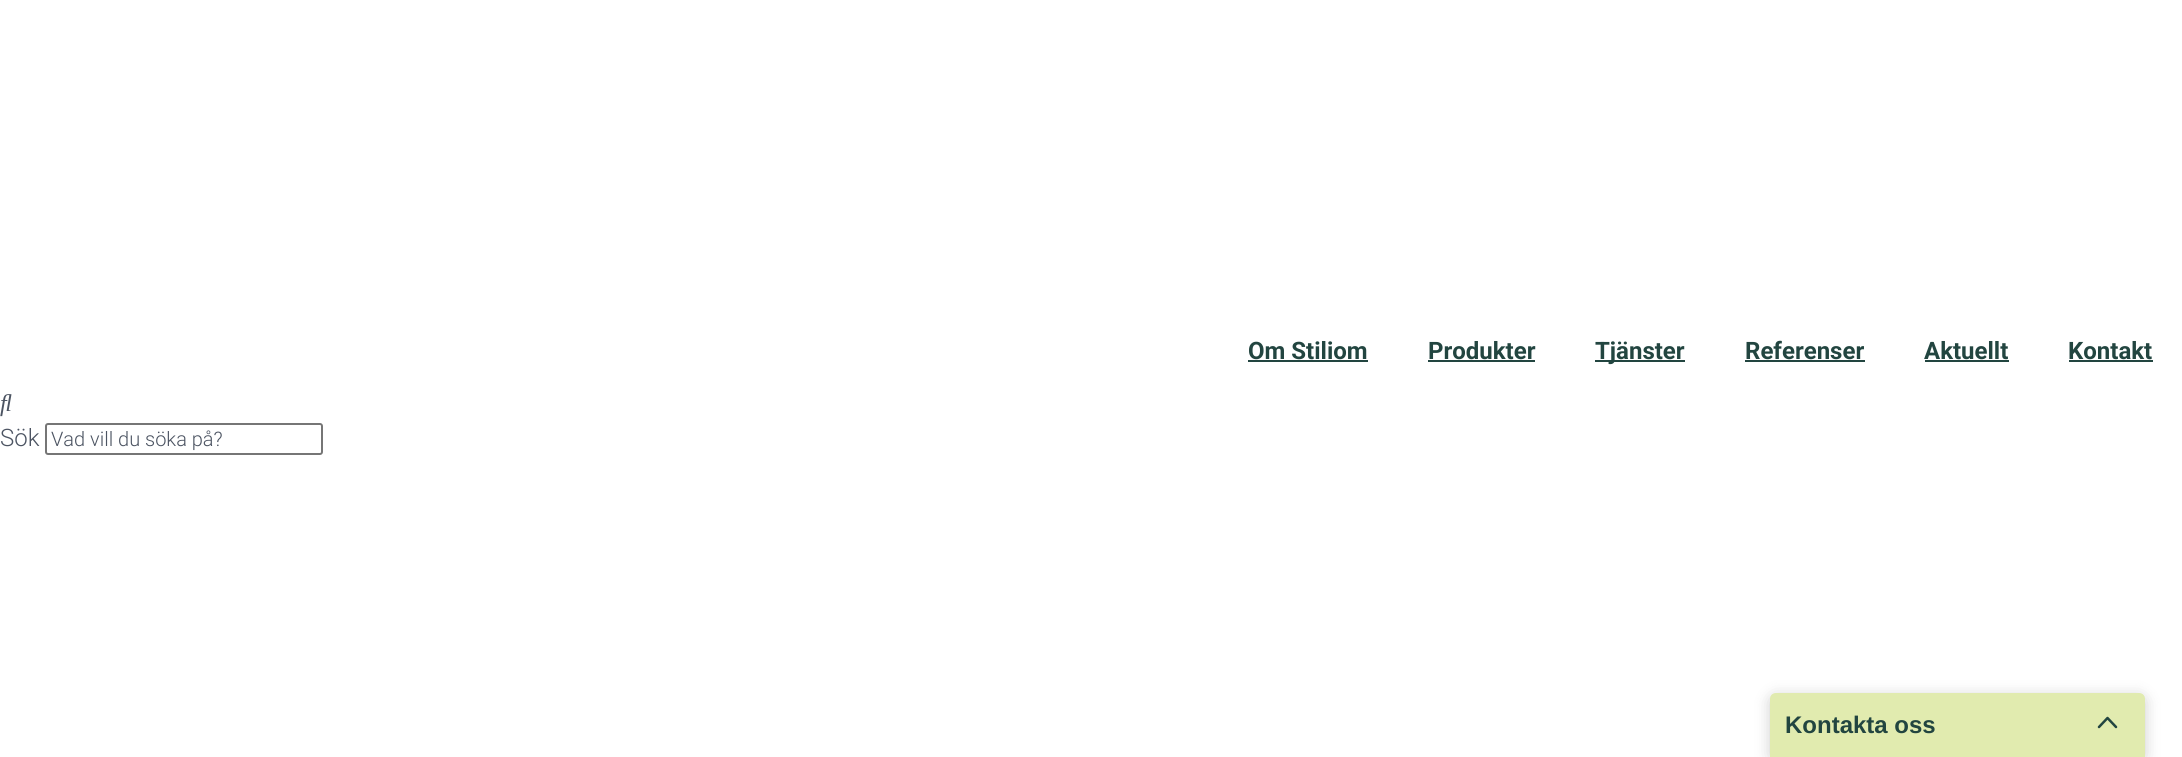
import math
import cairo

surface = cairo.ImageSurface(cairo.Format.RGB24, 2182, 757)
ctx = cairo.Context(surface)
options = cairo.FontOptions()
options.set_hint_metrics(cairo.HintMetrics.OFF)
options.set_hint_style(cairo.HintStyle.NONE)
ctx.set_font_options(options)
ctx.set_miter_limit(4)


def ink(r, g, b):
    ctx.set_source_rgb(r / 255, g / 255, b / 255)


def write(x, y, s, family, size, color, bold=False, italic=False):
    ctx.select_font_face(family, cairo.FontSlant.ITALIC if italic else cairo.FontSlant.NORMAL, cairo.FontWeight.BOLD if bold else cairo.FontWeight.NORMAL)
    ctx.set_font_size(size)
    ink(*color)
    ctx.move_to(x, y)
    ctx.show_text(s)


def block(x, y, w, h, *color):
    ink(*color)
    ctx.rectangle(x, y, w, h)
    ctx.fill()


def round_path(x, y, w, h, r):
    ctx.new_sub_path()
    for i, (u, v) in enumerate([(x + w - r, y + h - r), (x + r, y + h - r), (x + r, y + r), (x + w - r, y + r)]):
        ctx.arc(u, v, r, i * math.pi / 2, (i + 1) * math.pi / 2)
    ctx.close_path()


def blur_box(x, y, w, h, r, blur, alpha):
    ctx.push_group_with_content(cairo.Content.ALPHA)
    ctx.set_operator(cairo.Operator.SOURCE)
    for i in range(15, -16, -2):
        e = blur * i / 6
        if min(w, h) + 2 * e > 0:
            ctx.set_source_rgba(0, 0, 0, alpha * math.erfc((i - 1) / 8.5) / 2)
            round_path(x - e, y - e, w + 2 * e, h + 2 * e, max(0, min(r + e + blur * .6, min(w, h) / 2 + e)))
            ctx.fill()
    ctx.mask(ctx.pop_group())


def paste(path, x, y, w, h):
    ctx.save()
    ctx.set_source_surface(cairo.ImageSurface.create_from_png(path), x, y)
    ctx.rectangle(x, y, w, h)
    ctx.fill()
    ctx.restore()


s1 = dict(family="Roboto", size=24, color=(34, 69, 64), bold=True)
s2 = dict(family="Roboto Light", size=24, color=(76, 84, 98))
s3 = dict(family="Roboto Light", size=20, color=(76, 84, 98))
s4 = dict(family="Liberation Sans", size=24, color=(34, 69, 64), bold=True)

ink(255, 255, 255)
ctx.paint()
write(1248, 359, "Om Stiliom", **s1)
block(1248, 360, 120, 2, 34, 69, 64)
write(1428, 359, "Produkter", **s1)
block(1428, 360, 107, 2, 34, 69, 64)
block(1595, 360, 90, 2, 34, 69, 64)
write(1595, 359, "Tjänster", **s1)
write(1745, 359, "Referenser", **s1)
block(1745, 360, 120, 2, 34, 69, 64)
write(1924, 359, "Aktuellt", **s1)
block(1925, 360, 84, 2, 34, 69, 64)
write(2068, 359, "Kontakt", **s1)
block(2069, 360, 84, 2, 34, 69, 64)
paste("pic1.png", 0, 394, 12, 23)
write(0, 446, "Sök", **s2)
round_path(46, 424, 276, 30, 2)
ink(118, 118, 118)
ctx.stroke()
write(51, 446, "Vad vill du söka på?", **s3)
ink(0, 0, 0)
blur_box(1770, 696, 375, 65, 6, 7.5, 0.2)
ink(225, 235, 175)
ctx.new_path()
ctx.move_to(1776, 693)
ctx.line_to(2139, 693)
ctx.curve_to(2142.5, 693, 2145, 695.5, 2145, 699)
ctx.line_to(2145, 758)
ctx.line_to(1770, 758)
ctx.line_to(1770, 699)
ctx.curve_to(1770, 695.5, 1772.5, 693, 1776, 693)
ctx.close_path()
ctx.fill()
write(1785, 733, "Kontakta oss", **s4)
ctx.new_path()
ctx.move_to(2099, 727)
ctx.line_to(2107.5, 718)
ctx.line_to(2116, 727)
ctx.set_line_width(2.5)
ctx.set_line_cap(cairo.LineCap.ROUND)
ctx.set_line_join(cairo.LineJoin.ROUND)
ctx.stroke()
surface.write_to_png("screenshot.png")
